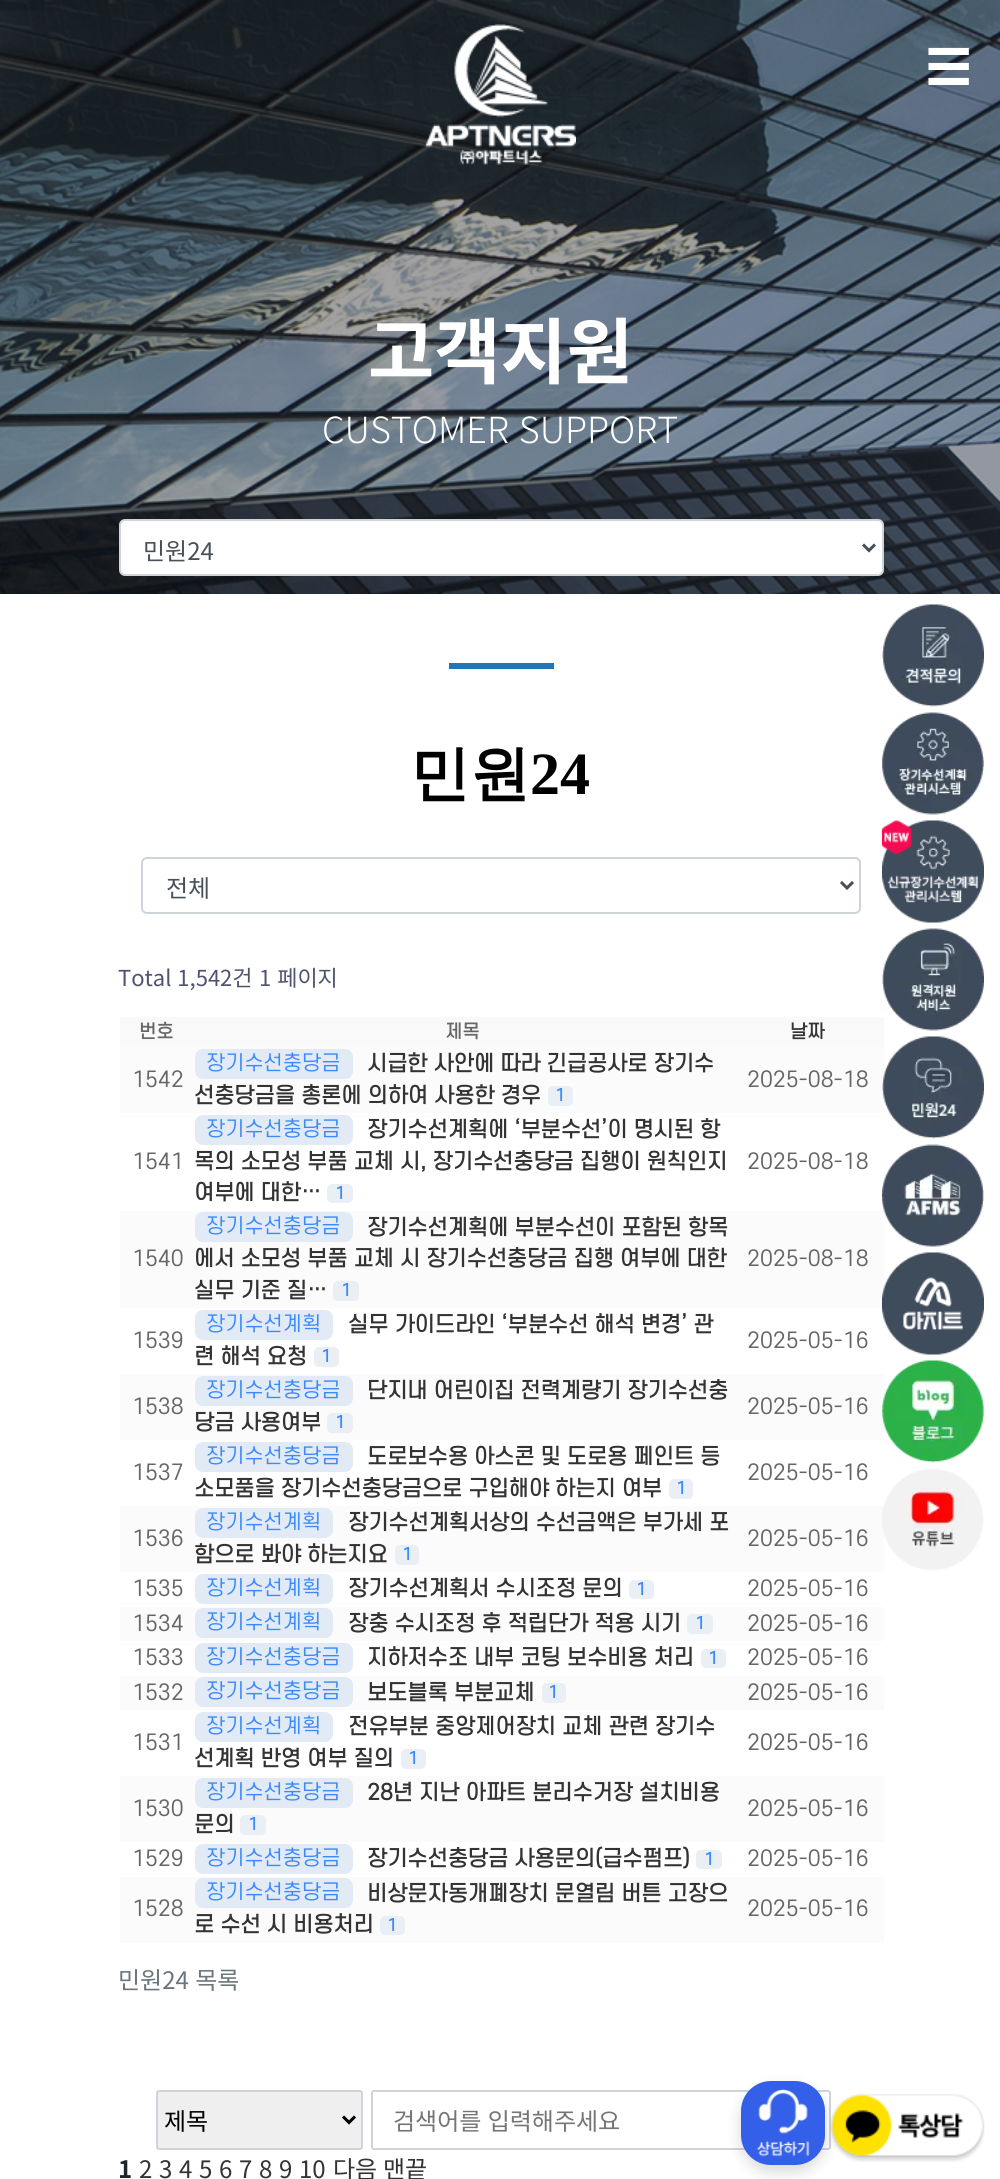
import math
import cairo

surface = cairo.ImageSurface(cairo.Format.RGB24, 1000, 2179)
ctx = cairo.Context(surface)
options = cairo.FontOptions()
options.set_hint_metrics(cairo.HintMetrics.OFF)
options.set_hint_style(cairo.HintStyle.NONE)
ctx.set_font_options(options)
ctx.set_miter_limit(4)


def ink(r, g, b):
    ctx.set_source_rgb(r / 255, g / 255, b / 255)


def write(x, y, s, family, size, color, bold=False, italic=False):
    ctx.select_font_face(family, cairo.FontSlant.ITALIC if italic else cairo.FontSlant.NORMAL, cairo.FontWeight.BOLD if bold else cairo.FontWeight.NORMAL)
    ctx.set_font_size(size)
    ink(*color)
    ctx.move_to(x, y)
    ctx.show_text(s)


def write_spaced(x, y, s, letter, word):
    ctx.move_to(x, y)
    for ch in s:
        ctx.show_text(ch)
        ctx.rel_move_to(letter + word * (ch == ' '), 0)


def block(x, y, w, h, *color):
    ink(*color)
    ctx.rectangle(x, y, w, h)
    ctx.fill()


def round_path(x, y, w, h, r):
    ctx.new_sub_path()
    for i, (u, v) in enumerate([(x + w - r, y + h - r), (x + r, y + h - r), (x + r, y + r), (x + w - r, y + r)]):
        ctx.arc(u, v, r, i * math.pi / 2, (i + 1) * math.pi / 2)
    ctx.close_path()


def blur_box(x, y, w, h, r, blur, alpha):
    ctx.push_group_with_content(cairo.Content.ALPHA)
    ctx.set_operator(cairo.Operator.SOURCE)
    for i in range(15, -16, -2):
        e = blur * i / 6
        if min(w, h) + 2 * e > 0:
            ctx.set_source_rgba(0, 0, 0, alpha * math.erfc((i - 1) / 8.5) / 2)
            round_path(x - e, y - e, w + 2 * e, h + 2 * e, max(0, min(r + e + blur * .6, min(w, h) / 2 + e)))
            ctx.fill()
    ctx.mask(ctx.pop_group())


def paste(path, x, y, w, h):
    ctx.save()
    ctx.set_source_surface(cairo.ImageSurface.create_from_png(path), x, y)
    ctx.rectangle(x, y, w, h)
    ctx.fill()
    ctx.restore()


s1 = dict(family="WenQuanYi Zen Hei Medium", size=45, color=(255, 255, 255))
s2 = dict(family="Noto Sans KR", size=72, color=(255, 255, 255), bold=True)
s3 = dict(family="Noto Sans KR", size=24, color=(73, 80, 87))
s4 = dict(family="WenQuanYi Zen Hei", size=60, color=(0, 0, 0), bold=True)
s5 = dict(family="Liberation Serif", size=60, color=(0, 0, 0), bold=True)
s6 = dict(family="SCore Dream", size=18, color=(102, 102, 102), bold=True)
s7 = dict(family="SCore Dream", size=18, color=(51, 51, 51), bold=True)
s8 = dict(family="SCore Dream", size=21, color=(102, 102, 102))
s9 = dict(family="SCore Dream", size=21, color=(51, 51, 51), bold=True)
s10 = dict(family="SCore Dream", size=16, color=(58, 138, 253), bold=True)
s11 = dict(family="SCore Dream", size=20, color=(58, 138, 253))
s12 = dict(family="Noto Sans KR", size=24, color=(0, 0, 0))
s13 = dict(family="Noto Sans KR", size=24, color=(33, 37, 41), bold=True)
s14 = dict(family="Noto Sans KR", size=24, color=(51, 51, 51))

ink(255, 255, 255)
ctx.paint()
paste("pic2.png", 0, 0, 1000, 594)
paste("pic1.png", 424, 24, 152, 141)
write(926, 83, "☰", **s1)
write(368, 378, "고객지원", **s2)
ctx.select_font_face("Noto Sans KR Light")
ctx.set_font_size(36)
write_spaced(322, 443, "CUSTOMER SUPPORT", 0, 2)
round_path(120, 520, 763, 55, 5)
ctx.fill_preserve()
ink(206, 212, 218)
ctx.stroke()
ctx.new_path()
ctx.move_to(863, 544.5)
ctx.line_to(869, 550.5)
ctx.line_to(875, 544.5)
ink(73, 80, 87)
ctx.set_line_width(3)
ctx.stroke()
write(143, 560, "민원24", **s3)
block(449, 663, 105, 6, 35, 118, 181)
write(410, 794, "민원", **s4)
write(530, 794, "24", **s5)
paste("pic3.png", 882, 604, 102, 103)
paste("pic4.png", 882, 712, 102, 103)
paste("pic5.png", 882, 820, 102, 103)
block(120, 1017, 764, 30, 249, 249, 249)
paste("pic6.png", 882, 928, 102, 103)
block(120, 1047, 764, 66, 251, 251, 251)
paste("pic7.png", 882, 1036, 102, 103)
block(120, 1211, 764, 97, 251, 251, 251)
paste("pic8.png", 882, 1144, 102, 103)
paste("pic9.png", 882, 1252, 102, 103)
block(120, 1374, 764, 66, 251, 251, 251)
paste("pic10.png", 882, 1360, 102, 103)
block(120, 1506, 764, 66, 251, 251, 251)
paste("pic11.png", 882, 1468, 102, 103)
round_path(142, 858, 718, 55, 5)
ink(206, 212, 218)
ctx.set_line_width(2)
ctx.stroke()
ctx.new_path()
ctx.move_to(841, 882)
ctx.line_to(847, 888)
ctx.line_to(853, 882)
ink(73, 80, 87)
ctx.set_line_width(3)
ctx.stroke()
write(166, 897, "전체", **s3)
ctx.set_font_size(22)
ink(78, 84, 111)
write_spaced(118, 986, "Total 1,542건", 0, 1)
write_spaced(259, 986, "1 페이지", 0, 1)
write(139, 1038, "번호", **s6)
write(445, 1038, "제목", **s6)
write(790, 1038, "날짜", **s7)
write(132, 1087, "1542", **s8)
write(367, 1071, "시급한 사안에 따라 긴급공사로 장기수", **s9)
write(194, 1103, "선충당금을 총론에 의하여 사용한 경우", **s9)
ink(233, 239, 245)
round_path(548, 1086, 25, 20, 5)
ctx.fill()
write(555, 1101, "1", **s10)
ink(226, 234, 246)
round_path(195, 1049, 158, 30, 8)
ctx.fill()
write(206, 1070, "장기수선충당금", **s11)
write(747, 1087, "2025-08-18", **s8)
write(132, 1169, "1541", **s8)
write(367, 1137, "장기수선계획에 ‘부분수선’이 명시된 항", **s9)
write(194, 1169, "목의 소모성 부품 교체 시, 장기수선충당금 집행이 원칙인지", **s9)
write(194, 1200, "여부에 대한…", **s9)
ink(233, 239, 245)
round_path(327, 1184, 26, 19, 5)
ctx.fill()
write(335, 1199, "1", **s10)
ink(226, 234, 246)
round_path(195, 1115, 158, 30, 8)
ctx.fill()
write(206, 1136, "장기수선충당금", **s11)
write(747, 1169, "2025-08-18", **s8)
write(132, 1266, "1540", **s8)
ink(226, 234, 246)
round_path(195, 1212, 158, 30, 8)
ctx.fill()
write(206, 1233, "장기수선충당금", **s11)
write(367, 1235, "장기수선계획에 부분수선이 포함된 항목", **s9)
write(194, 1266, "에서 소모성 부품 교체 시 장기수선충당금 집행 여부에 대한", **s9)
write(194, 1298, "실무 기준 질…", **s9)
ink(233, 239, 245)
round_path(333, 1281, 26, 20, 5)
ctx.fill()
write(341, 1296, "1", **s10)
write(747, 1266, "2025-08-18", **s8)
write(132, 1348, "1539", **s8)
write(348, 1332, "실무 가이드라인 ‘부분수선 해석 변경’ 관", **s9)
write(194, 1364, "련 해석 요청", **s9)
ink(233, 239, 245)
round_path(314, 1347, 25, 20, 5)
ctx.fill()
write(321, 1362, "1", **s10)
ink(226, 234, 246)
round_path(195, 1310, 138, 30, 8)
ctx.fill()
write(206, 1331, "장기수선계획", **s11)
write(747, 1348, "2025-05-16", **s8)
write(132, 1414, "1538", **s8)
write(367, 1398, "단지내 어린이집 전력계량기 장기수선충", **s9)
write(194, 1430, "당금 사용여부", **s9)
ink(233, 239, 245)
round_path(327, 1413, 26, 20, 5)
ctx.fill()
write(335, 1428, "1", **s10)
ink(226, 234, 246)
round_path(195, 1376, 158, 30, 8)
ctx.fill()
write(206, 1397, "장기수선충당금", **s11)
write(747, 1414, "2025-05-16", **s8)
write(132, 1480, "1537", **s8)
ink(226, 234, 246)
round_path(195, 1442, 158, 30, 8)
ctx.fill()
write(206, 1463, "장기수선충당금", **s11)
write(367, 1464, "도로보수용 아스콘 및 도로용 페인트 등", **s9)
write(194, 1496, "소모품을 장기수선충당금으로 구입해야 하는지 여부", **s9)
ink(233, 239, 245)
round_path(669, 1479, 24, 20, 5)
ctx.fill()
write(676, 1494, "1", **s10)
write(747, 1480, "2025-05-16", **s8)
write(132, 1546, "1536", **s8)
write(348, 1530, "장기수선계획서상의 수선금액은 부가세 포", **s9)
write(194, 1562, "함으로 봐야 하는지요", **s9)
ink(233, 239, 245)
round_path(395, 1545, 24, 20, 5)
ctx.fill()
write(402, 1560, "1", **s10)
ink(226, 234, 246)
round_path(195, 1508, 138, 30, 8)
ctx.fill()
write(206, 1529, "장기수선계획", **s11)
write(747, 1546, "2025-05-16", **s8)
write(132, 1596, "1535", **s8)
ink(226, 234, 246)
round_path(195, 1574, 138, 30, 8)
ctx.fill()
write(206, 1595, "장기수선계획", **s11)
write(348, 1596, "장기수선계획서 수시조정 문의", **s9)
ink(233, 239, 245)
round_path(629, 1580, 25, 19, 5)
ctx.fill()
write(636, 1595, "1", **s10)
write(747, 1596, "2025-05-16", **s8)
block(120, 1607, 764, 34, 251, 251, 251)
write(132, 1631, "1534", **s8)
ink(226, 234, 246)
round_path(195, 1608, 138, 30, 8)
ctx.fill()
write(206, 1629, "장기수선계획", **s11)
write(348, 1631, "장충 수시조정 후 적립단가 적용 시기", **s9)
ink(233, 239, 245)
round_path(687, 1614, 26, 20, 5)
ctx.fill()
write(695, 1629, "1", **s10)
write(747, 1631, "2025-05-16", **s8)
write(132, 1665, "1533", **s8)
ink(226, 234, 246)
round_path(195, 1643, 158, 30, 8)
ctx.fill()
write(206, 1664, "장기수선충당금", **s11)
write(367, 1665, "지하저수조 내부 코팅 보수비용 처리", **s9)
ink(233, 239, 245)
round_path(701, 1649, 25, 19, 5)
ctx.fill()
write(708, 1664, "1", **s10)
write(747, 1665, "2025-05-16", **s8)
block(120, 1676, 764, 34, 251, 251, 251)
write(132, 1700, "1532", **s8)
ink(226, 234, 246)
round_path(195, 1677, 158, 30, 8)
ctx.fill()
write(206, 1698, "장기수선충당금", **s11)
write(367, 1700, "보도블록 부분교체", **s9)
ink(233, 239, 245)
round_path(542, 1683, 24, 20, 5)
ctx.fill()
write(548, 1698, "1", **s10)
write(747, 1700, "2025-05-16", **s8)
write(132, 1750, "1531", **s8)
write(348, 1734, "전유부분 중앙제어장치 교체 관련 장기수", **s9)
write(194, 1766, "선계획 반영 여부 질의", **s9)
ink(233, 239, 245)
round_path(401, 1749, 25, 20, 5)
ctx.fill()
write(408, 1764, "1", **s10)
ink(226, 234, 246)
round_path(195, 1712, 138, 30, 8)
ctx.fill()
write(206, 1733, "장기수선계획", **s11)
write(747, 1750, "2025-05-16", **s8)
block(120, 1776, 764, 66, 251, 251, 251)
write(132, 1816, "1530", **s8)
write(367, 1800, "28년 지난 아파트 분리수거장 설치비용", **s9)
write(194, 1832, "문의", **s9)
ink(233, 239, 245)
round_path(240, 1815, 26, 20, 5)
ctx.fill()
write(248, 1830, "1", **s10)
ink(226, 234, 246)
round_path(195, 1778, 158, 30, 8)
ctx.fill()
write(206, 1799, "장기수선충당금", **s11)
write(747, 1816, "2025-05-16", **s8)
write(132, 1866, "1529", **s8)
ink(226, 234, 246)
round_path(195, 1844, 158, 30, 8)
ctx.fill()
write(206, 1865, "장기수선충당금", **s11)
write(367, 1866, "장기수선충당금 사용문의(급수펌프)", **s9)
ink(233, 239, 245)
round_path(696, 1850, 26, 19, 5)
ctx.fill()
write(704, 1865, "1", **s10)
write(747, 1866, "2025-05-16", **s8)
block(120, 1877, 764, 66, 251, 251, 251)
write(132, 1916, "1528", **s8)
ink(226, 234, 246)
round_path(195, 1878, 158, 30, 8)
ctx.fill()
write(206, 1899, "장기수선충당금", **s11)
write(367, 1901, "비상문자동개폐장치 문열림 버튼 고장으", **s9)
write(194, 1932, "로 수선 시 비용처리", **s9)
ink(233, 239, 245)
round_path(380, 1916, 25, 19, 5)
ctx.fill()
write(387, 1931, "1", **s10)
write(747, 1916, "2025-05-16", **s8)
ctx.select_font_face("Noto Sans KR")
ctx.set_font_size(24)
ink(108, 117, 125)
write_spaced(118, 1989, "민원24 목록", 0, 1)
ink(239, 239, 239)
round_path(157, 2091, 205, 58, 2)
ctx.fill_preserve()
ink(208, 211, 219)
ctx.set_line_width(2)
ctx.stroke()
ctx.new_path()
ctx.move_to(343, 2116.5)
ctx.line_to(349, 2122.5)
ctx.line_to(355, 2116.5)
ink(0, 0, 0)
ctx.set_line_width(3)
ctx.stroke()
write(164, 2130, "제목", **s12)
round_path(372, 2091, 458, 58, 2)
ink(208, 211, 219)
ctx.set_line_width(2)
ctx.stroke()
ink(117, 117, 117)
write_spaced(393, 2130, "검색어를 입력해주세요", 0, 1)
write(118, 2178, "1", **s13)
write(139, 2178, "2", **s14)
write(159, 2178, "3", **s14)
write(179, 2178, "4", **s14)
write(199, 2178, "5", **s14)
write(219, 2178, "6", **s14)
write(239, 2178, "7", **s14)
write(259, 2178, "8", **s14)
write(279, 2178, "9", **s14)
write(299, 2178, "10", **s14)
write(333, 2178, "다음", **s14)
write(383, 2178, "맨끝", **s14)
paste("pic13.png", 830, 2094, 155, 68)
ink(0, 0, 0)
blur_box(741, 2088, 84, 84, 30, 7.5, 0.15)
ink(52, 95, 232)
round_path(741, 2081, 84, 84, 30)
ctx.fill()
paste("pic12.png", 756, 2089, 54, 68)
surface.write_to_png("screenshot.png")
